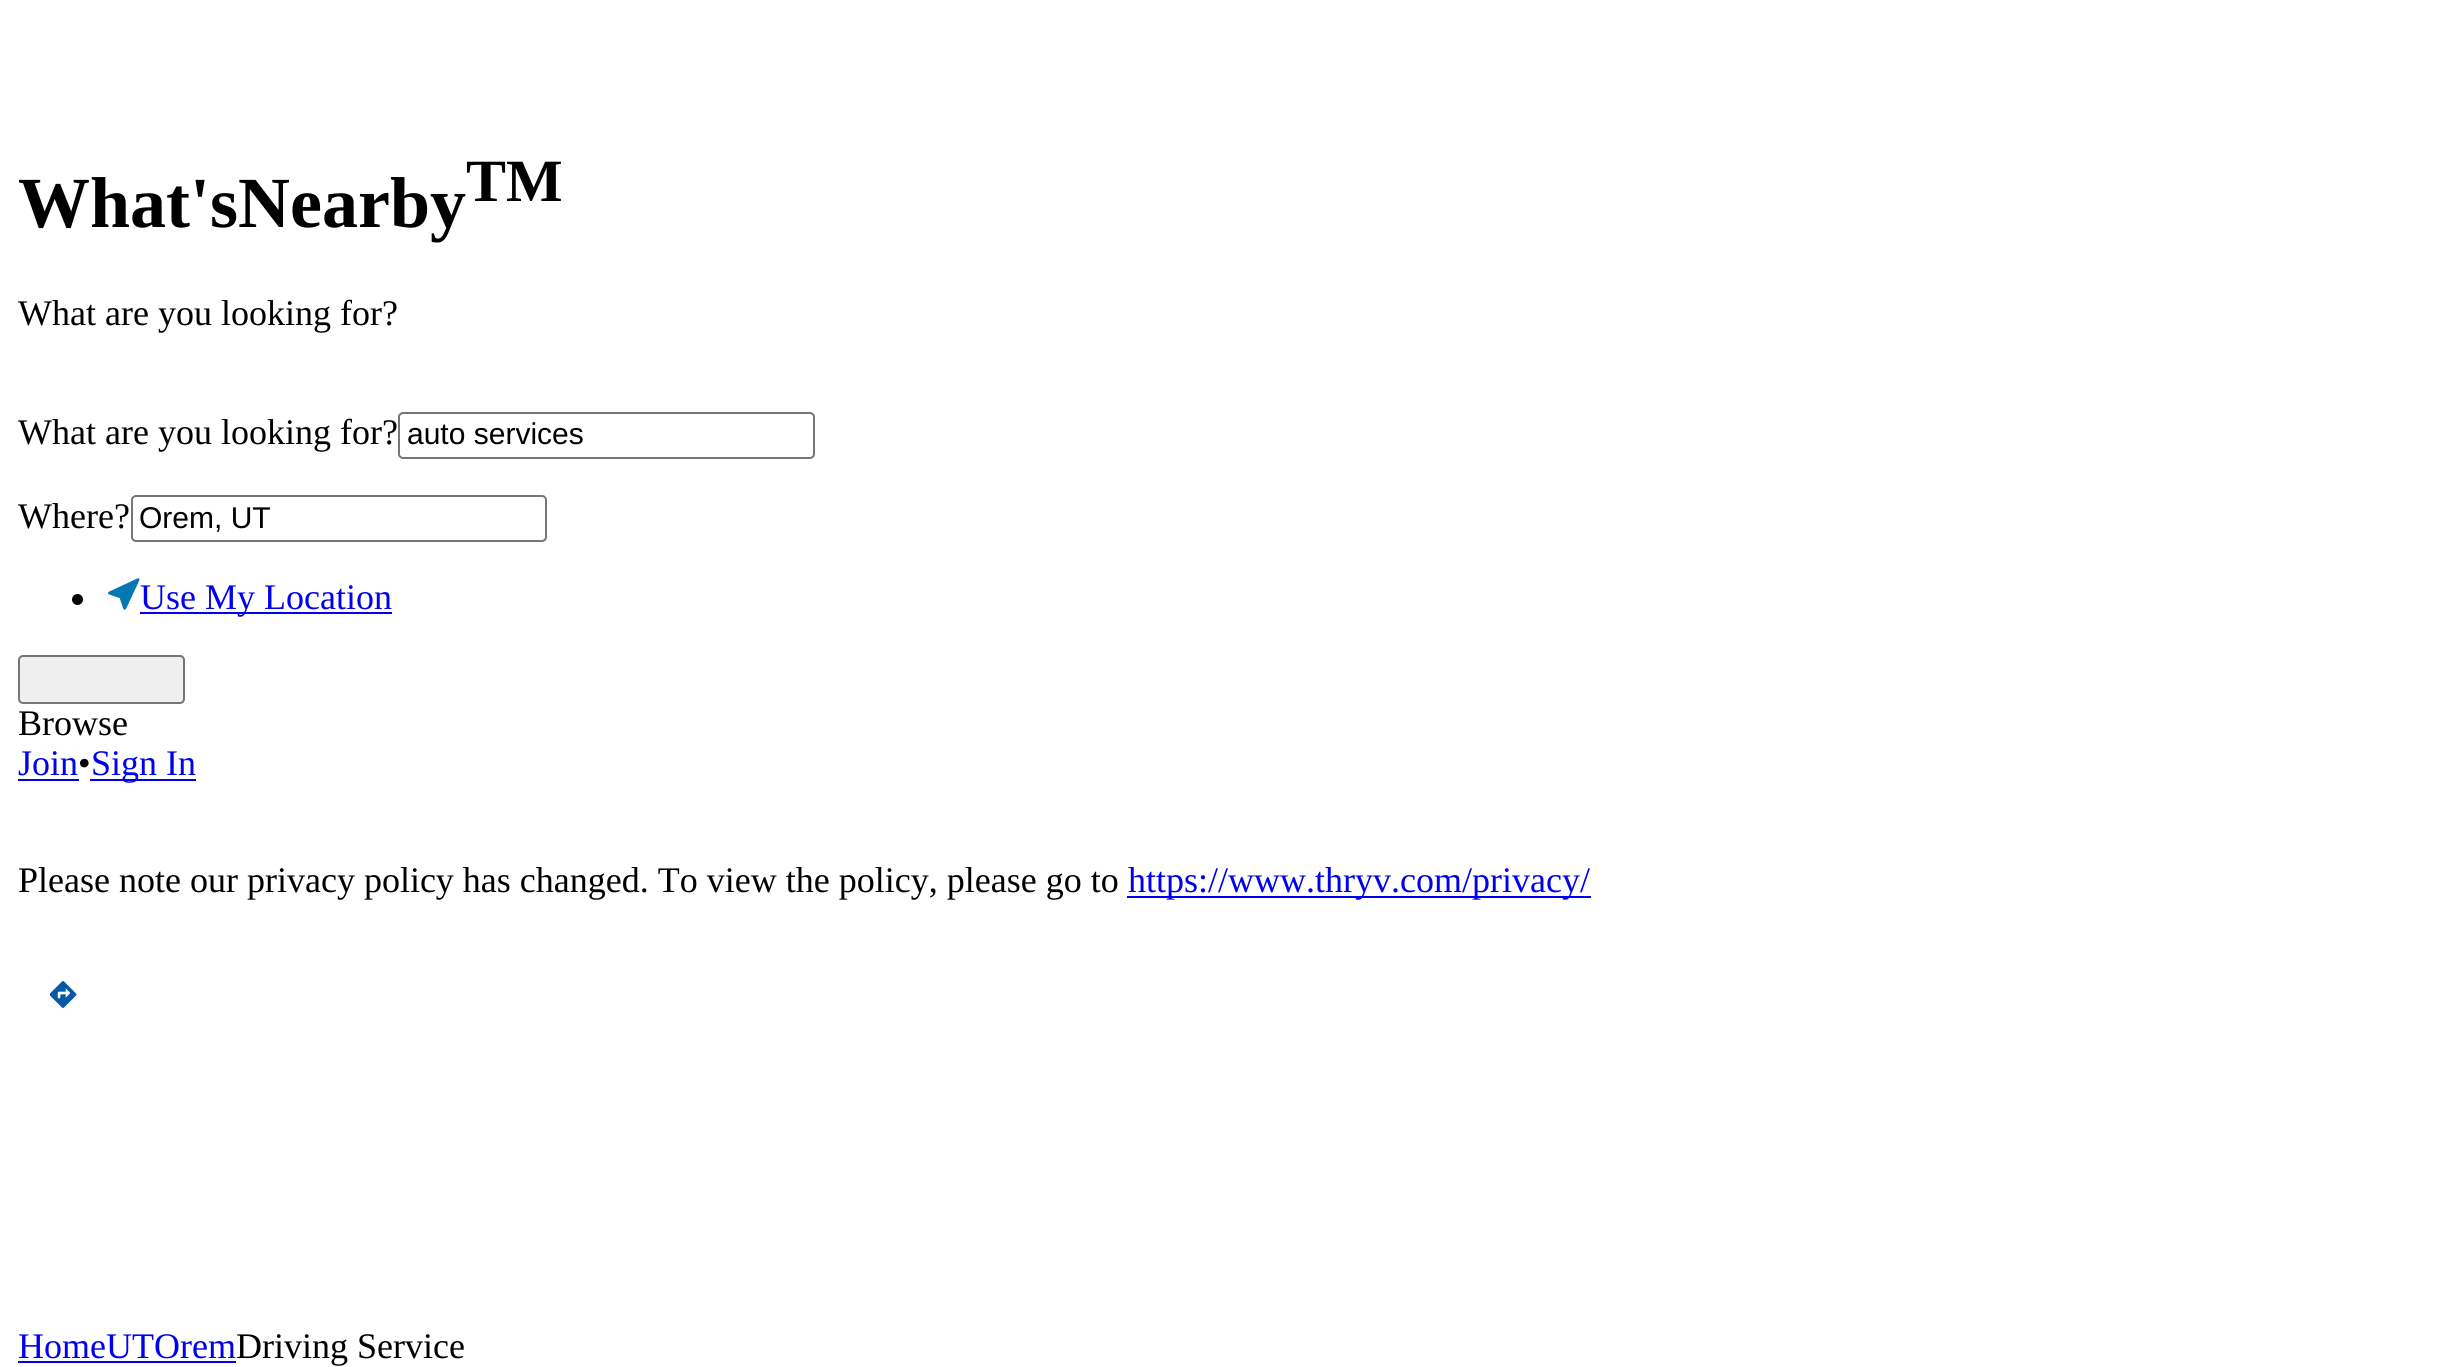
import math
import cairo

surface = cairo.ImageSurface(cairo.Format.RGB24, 2455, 1367)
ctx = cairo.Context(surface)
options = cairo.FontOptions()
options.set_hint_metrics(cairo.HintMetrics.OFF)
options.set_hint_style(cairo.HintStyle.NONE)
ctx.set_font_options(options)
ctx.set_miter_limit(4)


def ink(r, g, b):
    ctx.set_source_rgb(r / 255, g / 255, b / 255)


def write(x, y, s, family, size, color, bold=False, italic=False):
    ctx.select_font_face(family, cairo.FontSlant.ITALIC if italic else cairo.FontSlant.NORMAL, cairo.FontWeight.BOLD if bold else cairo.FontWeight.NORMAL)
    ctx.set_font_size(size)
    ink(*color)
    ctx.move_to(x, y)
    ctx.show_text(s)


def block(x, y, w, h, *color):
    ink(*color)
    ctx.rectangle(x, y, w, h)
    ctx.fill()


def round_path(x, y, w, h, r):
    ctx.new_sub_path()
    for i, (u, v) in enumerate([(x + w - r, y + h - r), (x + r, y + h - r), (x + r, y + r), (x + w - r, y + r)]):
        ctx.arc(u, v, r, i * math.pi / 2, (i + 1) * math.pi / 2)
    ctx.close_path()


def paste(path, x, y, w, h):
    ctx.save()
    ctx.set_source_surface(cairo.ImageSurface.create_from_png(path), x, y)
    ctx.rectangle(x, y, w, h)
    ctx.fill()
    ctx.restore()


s1 = dict(family="Liberation Serif", size=72, color=(0, 0, 0), bold=True)
s2 = dict(family="Liberation Serif", size=60, color=(0, 0, 0), bold=True)
s3 = dict(family="Liberation Serif", size=36, color=(0, 0, 0))
s4 = dict(family="Liberation Sans", size=30, color=(0, 0, 0))
s5 = dict(family="Liberation Serif", size=36, color=(0, 0, 238))

ink(255, 255, 255)
ctx.paint()
write(18, 227, "What'sNearby", **s1)
write(466, 201, "TM", **s2)
write(18, 325, "What are you looking for?", **s3)
write(18, 444, "What are you looking for?", **s3)
round_path(399, 413, 415, 45, 4)
ink(118, 118, 118)
ctx.stroke()
write(407, 444, "auto services", **s4)
write(18, 528, "Where?", **s3)
round_path(132, 496, 414, 45, 4)
ink(118, 118, 118)
ctx.stroke()
write(139, 528, "Orem, UT", **s4)
ctx.new_path()
ctx.arc(77.5, 599.5, 5.5, 0, 2 * math.pi)
ctx.fill()
paste("pic1.png", 108, 578, 32, 32)
block(140, 612, 252, 2, 0, 0, 238)
write(140, 609, "Use My Location", **s5)
ink(239, 239, 239)
round_path(19, 656, 165, 47, 4)
ctx.fill_preserve()
ink(118, 118, 118)
ctx.stroke()
write(18, 735, "Browse", **s3)
write(18, 775, "Join", **s5)
block(18, 779, 61, 2, 0, 0, 238)
write(78, 775, "•", **s3)
block(90, 779, 106, 2, 0, 0, 238)
write(91, 775, "Sign In", **s5)
write(18, 892, "Please note our privacy policy has changed. To view the policy, please go to", **s3)
block(1127, 896, 464, 2, 0, 0, 238)
write(1128, 892, "https://www.thryv.com/privacy/", **s5)
paste("pic2.png", 50, 981, 27, 27)
write(18, 1358, "HomeUTOrem", **s5)
block(18, 1361, 218, 2, 0, 0, 238)
write(236, 1358, "Driving Service", **s3)
surface.write_to_png("screenshot.png")
